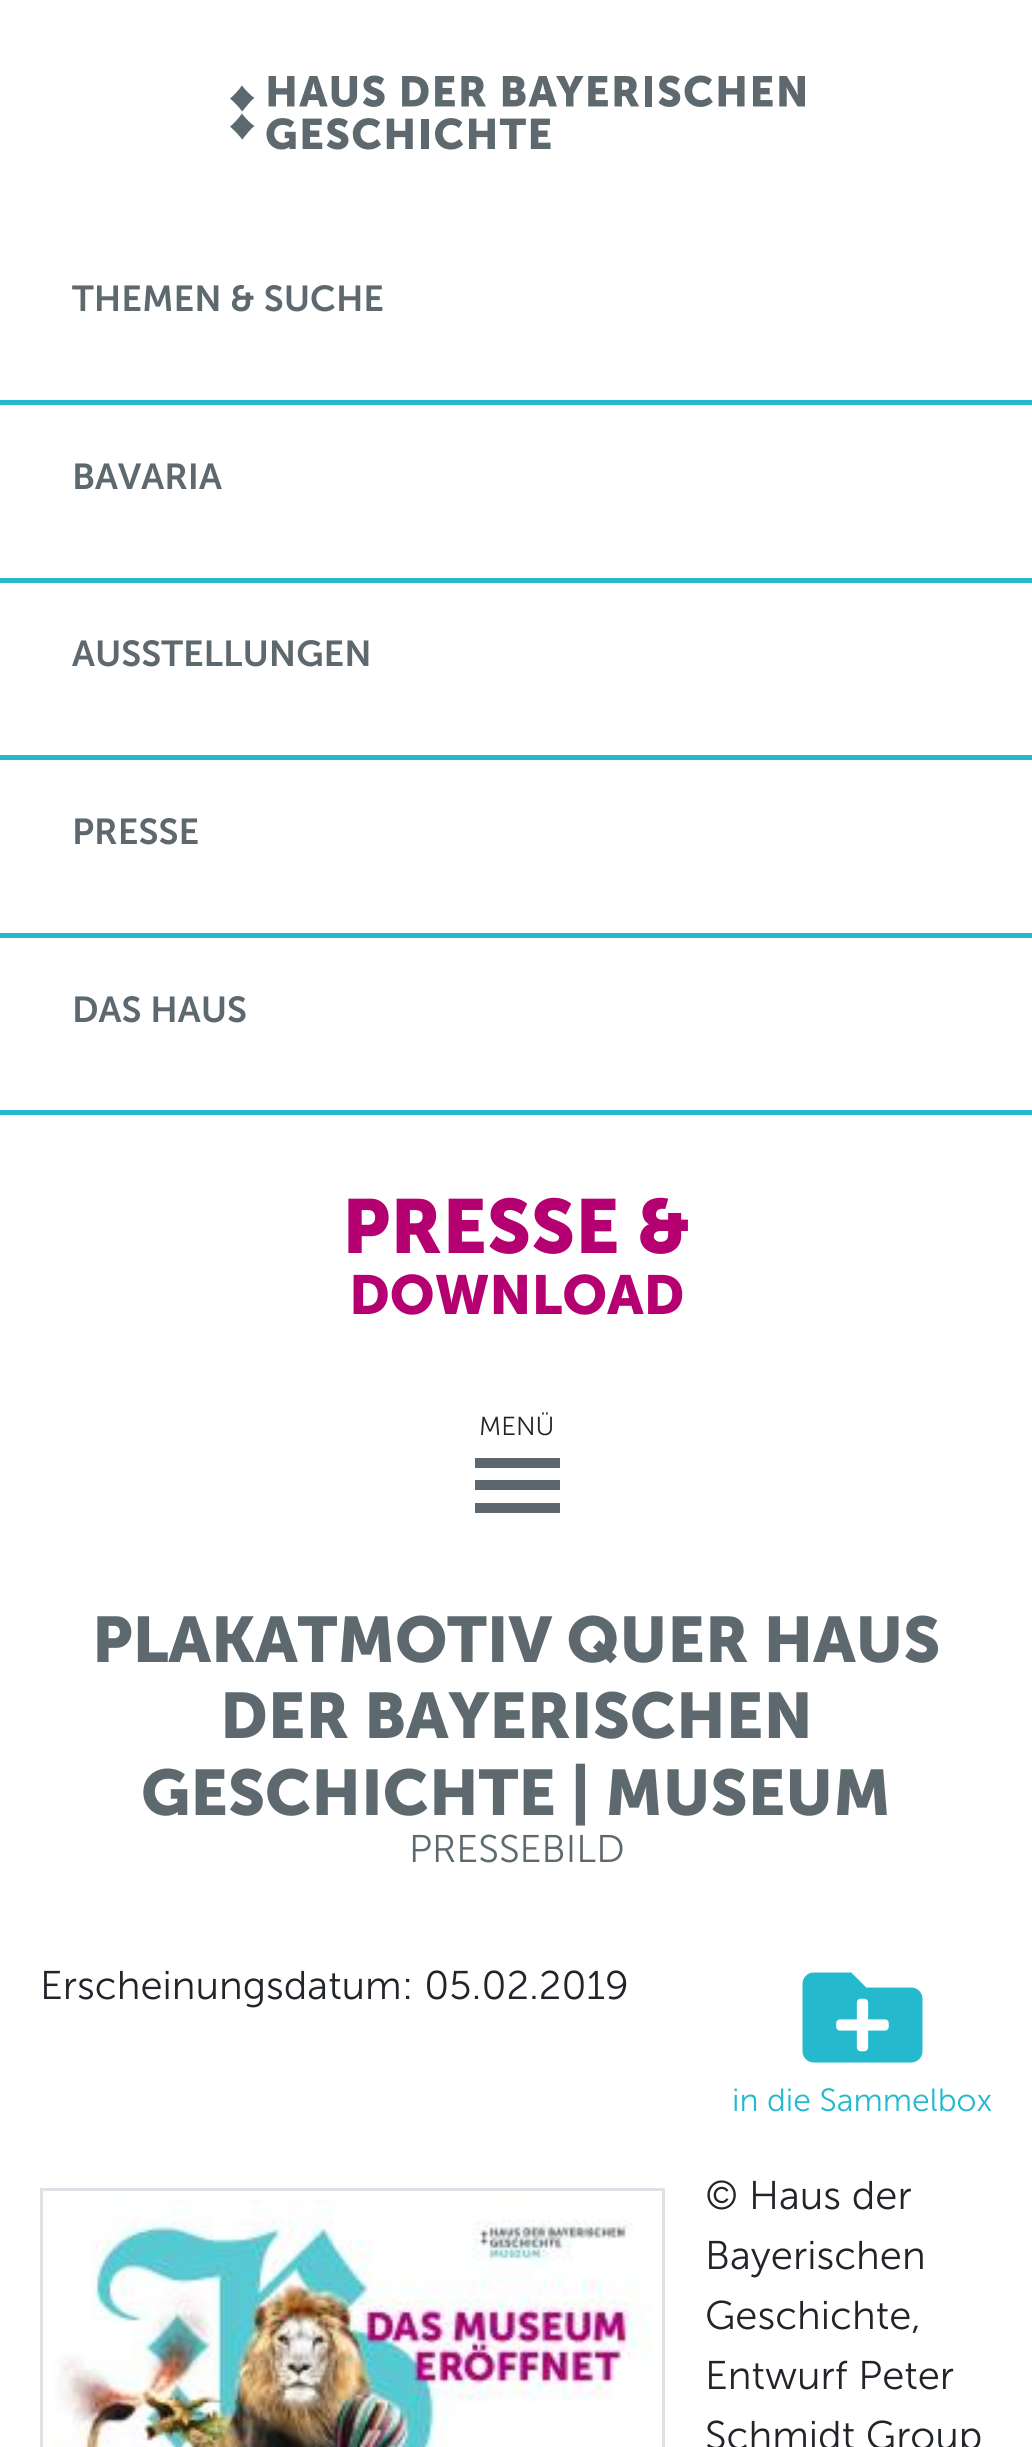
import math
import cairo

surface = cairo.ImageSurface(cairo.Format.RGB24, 1032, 2447)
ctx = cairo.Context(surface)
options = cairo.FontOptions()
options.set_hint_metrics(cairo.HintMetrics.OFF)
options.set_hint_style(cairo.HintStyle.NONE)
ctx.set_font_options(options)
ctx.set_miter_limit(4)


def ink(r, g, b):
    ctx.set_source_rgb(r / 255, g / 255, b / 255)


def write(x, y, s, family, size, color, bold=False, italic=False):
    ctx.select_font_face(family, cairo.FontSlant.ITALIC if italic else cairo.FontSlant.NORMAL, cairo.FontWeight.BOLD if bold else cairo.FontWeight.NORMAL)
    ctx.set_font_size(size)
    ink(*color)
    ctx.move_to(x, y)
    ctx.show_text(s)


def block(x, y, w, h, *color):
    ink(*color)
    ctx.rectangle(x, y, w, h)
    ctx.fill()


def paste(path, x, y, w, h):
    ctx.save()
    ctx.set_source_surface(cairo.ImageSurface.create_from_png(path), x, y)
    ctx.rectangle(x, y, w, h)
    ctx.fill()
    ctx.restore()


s1 = dict(family="Museo Sans SemiBold", size=36, color=(93, 105, 110))
s2 = dict(family="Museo", size=76, color=(180, 0, 113), bold=True)
s3 = dict(family="Museo", size=54.75, color=(180, 0, 113), bold=True)
s4 = dict(family="Museo Light", size=26, color=(33, 37, 41))
s5 = dict(family="Museo", size=64, color=(93, 105, 110), bold=True)
s6 = dict(family="Museo Light", size=38.5, color=(93, 105, 110))
s7 = dict(family="Museo Light", size=40, color=(33, 37, 41))
s8 = dict(family="Museo Light", size=32, color=(37, 185, 205))

ink(255, 255, 255)
ctx.paint()
paste("pic1.png", 230, 75, 575, 75)
block(0, 400, 1032, 5, 37, 185, 205)
write(72, 311, "THEMEN & SUCHE", **s1)
block(0, 578, 1032, 5, 37, 185, 205)
write(72, 489, "BAVARIA", **s1)
block(0, 755, 1032, 5, 37, 185, 205)
write(72, 666, "AUSSTELLUNGEN", **s1)
block(0, 933, 1032, 5, 37, 185, 205)
write(72, 844, "PRESSE", **s1)
block(0, 1110, 1032, 5, 37, 185, 205)
write(72, 1022, "DAS HAUS", **s1)
write(342, 1253, "PRESSE &", **s2)
write(349, 1314, "DOWNLOAD", **s3)
write(479, 1435, "MENÜ", **s4)
block(475, 1458, 85, 10, 92, 103, 111)
block(475, 1480, 85, 10, 92, 103, 111)
block(475, 1503, 85, 10, 92, 103, 111)
write(92, 1662, "PLAKATMOTIV QUER HAUS", **s5)
write(220, 1738, "DER BAYERISCHEN", **s5)
write(141, 1815, "GESCHICHTE | MUSEUM", **s5)
write(409, 1862, "PRESSEBILD", **s6)
write(40, 1999, "Erscheinungsdatum: 05.02.2019", **s7)
paste("pic2.png", 802, 1972, 121, 91)
write(732, 2111, "in die Sammelbox", **s8)
ctx.rectangle(41.5, 2189.5, 622, 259)
ink(222, 226, 230)
ctx.set_line_width(3)
ctx.stroke()
paste("pic3.png", 52, 2200, 601, 247)
write(705, 2209, "© Haus der", **s7)
write(705, 2269, "Bayerischen", **s7)
write(705, 2329, "Geschichte,", **s7)
write(705, 2389, "Entwurf Peter", **s7)
write(705, 2449, "Schmidt Group", **s7)
surface.write_to_png("screenshot.png")
